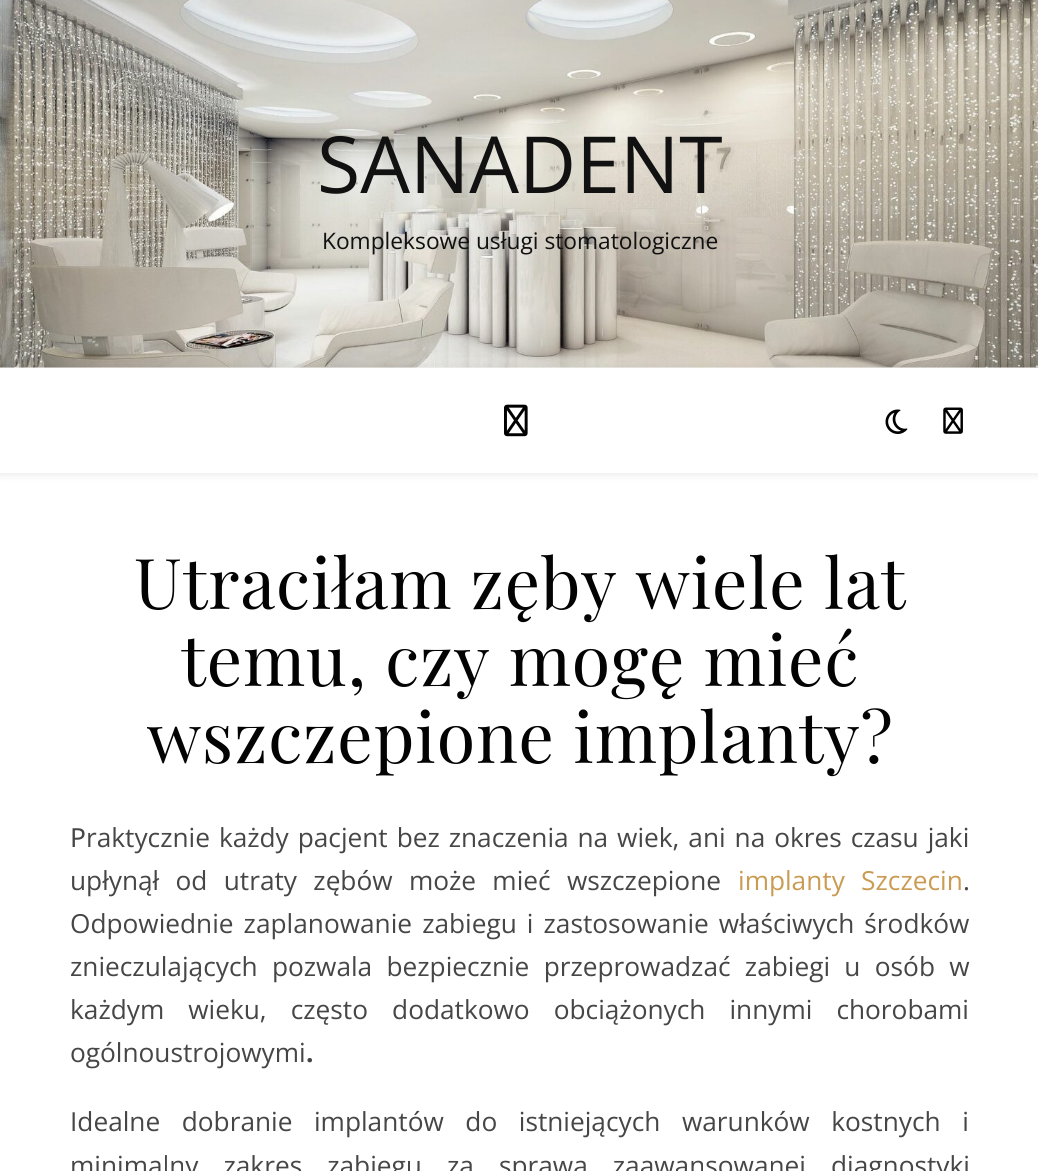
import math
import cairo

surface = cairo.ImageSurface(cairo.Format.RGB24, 1038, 1171)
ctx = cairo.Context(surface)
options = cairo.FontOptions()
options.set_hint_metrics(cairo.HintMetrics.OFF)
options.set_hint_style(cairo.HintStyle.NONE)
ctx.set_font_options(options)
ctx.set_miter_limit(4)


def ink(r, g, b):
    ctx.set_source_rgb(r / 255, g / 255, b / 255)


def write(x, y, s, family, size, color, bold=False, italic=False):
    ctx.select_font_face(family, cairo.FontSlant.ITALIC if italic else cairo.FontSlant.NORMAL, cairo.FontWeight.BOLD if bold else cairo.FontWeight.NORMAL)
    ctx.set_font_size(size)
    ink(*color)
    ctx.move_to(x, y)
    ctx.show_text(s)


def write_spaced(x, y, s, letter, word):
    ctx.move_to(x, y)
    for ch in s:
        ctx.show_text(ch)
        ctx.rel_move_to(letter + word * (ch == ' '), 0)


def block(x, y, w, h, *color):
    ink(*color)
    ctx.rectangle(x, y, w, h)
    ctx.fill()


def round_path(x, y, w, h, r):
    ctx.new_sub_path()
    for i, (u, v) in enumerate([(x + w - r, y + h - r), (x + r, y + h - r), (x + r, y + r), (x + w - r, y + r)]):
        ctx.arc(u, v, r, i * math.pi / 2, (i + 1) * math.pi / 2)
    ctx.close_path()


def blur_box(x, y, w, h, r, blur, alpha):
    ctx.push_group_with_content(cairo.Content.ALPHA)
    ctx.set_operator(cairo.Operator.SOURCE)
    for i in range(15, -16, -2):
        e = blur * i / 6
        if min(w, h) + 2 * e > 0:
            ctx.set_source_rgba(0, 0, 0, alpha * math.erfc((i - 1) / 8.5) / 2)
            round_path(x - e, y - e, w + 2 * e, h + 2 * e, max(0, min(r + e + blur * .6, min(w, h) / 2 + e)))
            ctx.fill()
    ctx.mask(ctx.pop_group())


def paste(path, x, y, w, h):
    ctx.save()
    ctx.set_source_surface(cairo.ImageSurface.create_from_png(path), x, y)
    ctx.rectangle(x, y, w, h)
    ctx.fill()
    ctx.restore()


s1 = dict(family="Open Sans", size=78.75, color=(17, 17, 17))
s2 = dict(family="Open Sans", size=22.75, color=(17, 17, 17))
s3 = dict(family="Noto Sans", size=26.25, color=(70, 70, 70))
s4 = dict(family="Open Sans", size=26.25, color=(70, 70, 70))
s5 = dict(family="Open Sans", size=26.25, color=(70, 70, 70), bold=True)

ink(255, 255, 255)
ctx.paint()
paste("pic1.png", 0, 0, 1038, 368)
write(317, 193, "SANADENT", **s1)
write(322, 249, "Kompleksowe usługi stomatologiczne", **s2)
ink(0, 0, 0)
blur_box(0, 369, 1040, 105, 0, 4.5, 0.1)
block(0, 368, 1038, 105, 255, 255, 255)
paste("pic2.png", 504, 404, 24, 33)
paste("pic3.png", 885, 409, 23, 25)
paste("pic4.png", 943, 407, 20, 27)
ctx.select_font_face("Playfair Display")
ctx.set_font_size(70)
ink(3, 3, 3)
write_spaced(134, 609, "Utraciłam zęby wiele lat", 0.9, 0)
write_spaced(181, 686, "temu, czy mogę mieć", 0.9, 0)
write_spaced(147, 763, "wszczepione implanty?", 0.9, 0)
write(70, 847, "P", **s3)
ctx.select_font_face("Open Sans")
write_spaced(86, 847, "raktycznie każdy pacjent bez znaczenia na wiek, ani na okres czasu jaki", 0, 2.1)
write_spaced(70, 890, "upłynął od utraty zębów może mieć wszczepione", 0, 9.5)
ink(202, 155, 82)
write_spaced(738, 890, "implanty Szczecin", 0, 9.5)
write(963, 890, ".", **s4)
write_spaced(70, 933, "Odpowiednie zaplanowanie zabiegu i zastosowanie właściwych środków", 0, 3.25)
write_spaced(70, 976, "znieczulających pozwala bezpiecznie przeprowadzać zabiegi u osób w", 0, 7.5)
write_spaced(70, 1019, "każdym wieku, często dodatkowo obciążonych innymi chorobami", 0, 17.25)
write(70, 1062, "ogólnoustrojowymi", **s4)
write(306, 1062, ".", **s5)
ctx.select_font_face("Open Sans")
write_spaced(70, 1131, "Idealne dobranie implantów do istniejących warunków kostnych i", 0, 14.75)
write_spaced(70, 1175, "minimalny zakres zabiegu za sprawą zaawansowanej diagnostyki", 0, 18.25)
surface.write_to_png("screenshot.png")
